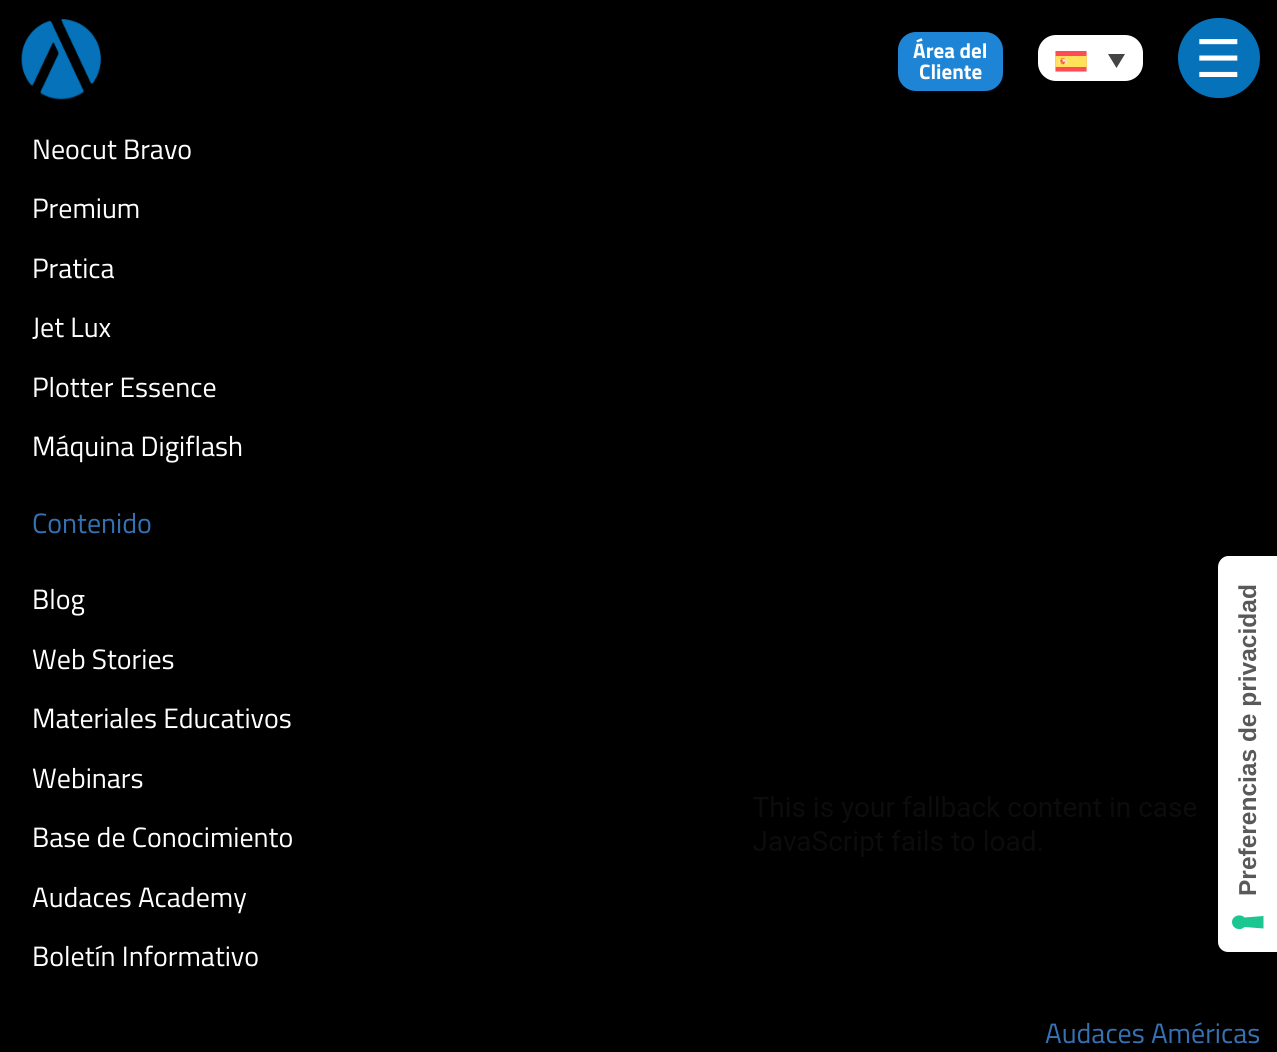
import math
import cairo

surface = cairo.ImageSurface(cairo.Format.RGB24, 1277, 1052)
ctx = cairo.Context(surface)
options = cairo.FontOptions()
options.set_hint_metrics(cairo.HintMetrics.OFF)
options.set_hint_style(cairo.HintStyle.NONE)
ctx.set_font_options(options)
ctx.set_miter_limit(4)


def ink(r, g, b):
    ctx.set_source_rgb(r / 255, g / 255, b / 255)


def write(x, y, s, family, size, color, bold=False, italic=False):
    ctx.select_font_face(family, cairo.FontSlant.ITALIC if italic else cairo.FontSlant.NORMAL, cairo.FontWeight.BOLD if bold else cairo.FontWeight.NORMAL)
    ctx.set_font_size(size)
    ink(*color)
    ctx.move_to(x, y)
    ctx.show_text(s)


def round_path(x, y, w, h, r):
    ctx.new_sub_path()
    for i, (u, v) in enumerate([(x + w - r, y + h - r), (x + r, y + h - r), (x + r, y + r), (x + w - r, y + r)]):
        ctx.arc(u, v, r, i * math.pi / 2, (i + 1) * math.pi / 2)
    ctx.close_path()


def paste(path, x, y, w, h):
    ctx.save()
    ctx.set_source_surface(cairo.ImageSurface.create_from_png(path), x, y)
    ctx.rectangle(x, y, w, h)
    ctx.fill()
    ctx.restore()


s1 = dict(family="Titillium Web", size=21, color=(255, 255, 255), bold=True)
s2 = dict(family="DejaVu Sans", size=52, color=(255, 255, 255))
s3 = dict(family="Titillium Web", size=28, color=(255, 255, 255))
s4 = dict(family="Titillium Web", size=28, color=(53, 114, 180))
s5 = dict(family="Liberation Sans", size=24.5, color=(89, 89, 89), bold=True)

ink(0, 0, 0)
ctx.paint()
paste("pic1.png", 21, 19, 80, 81)
ink(30, 132, 213)
round_path(898, 32, 105, 59, 18)
ctx.fill()
write(913, 58, "Área del", **s1)
write(919, 79, "Cliente", **s1)
round_path(1038, 35, 105, 46, 18)
ctx.fill()
paste("pic2.png", 1055, 51, 32, 21)
ink(68, 68, 68)
ctx.new_path()
ctx.move_to(1108, 54)
ctx.line_to(1125, 54)
ctx.line_to(1116.5, 68)
ctx.close_path()
ctx.fill()
ink(6, 114, 185)
round_path(1178, 18, 82, 80, 40)
ctx.fill()
write(1195, 77, "☰", **s2)
write(32, 159, "Neocut Bravo", **s3)
write(32, 218, "Premium", **s3)
write(32, 278, "Pratica", **s3)
write(32, 337, "Jet Lux", **s3)
write(32, 397, "Plotter Essence", **s3)
write(32, 456, "Máquina Digiflash", **s3)
write(32, 533, "Contenido", **s4)
write(32, 609, "Blog", **s3)
write(32, 669, "Web Stories", **s3)
write(32, 728, "Materiales Educativos", **s3)
write(32, 788, "Webinars", **s3)
write(32, 847, "Base de Conocimiento", **s3)
write(32, 907, "Audaces Academy", **s3)
write(32, 966, "Boletín Informativo", **s3)
write(1045, 1043, "Audaces Américas", **s4)
paste("pic3.png", 753, 796, 443, 61)
ink(255, 255, 255)
ctx.new_path()
ctx.move_to(1218, 942)
ctx.line_to(1218, 567)
ctx.curve_to(1218, 561, 1223, 556, 1228, 556)
ctx.line_to(1277, 556)
ctx.line_to(1277, 952)
ctx.line_to(1228, 952)
ctx.curve_to(1223, 952, 1218, 948, 1218, 942)
ctx.close_path()
ctx.fill()
ink(28, 198, 145)
ctx.set_fill_rule(cairo.FillRule.EVEN_ODD)
ctx.new_path()
ctx.move_to(1232, 922)
ctx.curve_to(1232, 916, 1240, 913, 1244.5, 917.5)
ctx.line_to(1263.5, 916)
ctx.line_to(1263.5, 928.5)
ctx.line_to(1244.5, 927)
ctx.curve_to(1240, 931.5, 1232, 928.5, 1232, 922)
ctx.close_path()
ctx.fill()
ctx.save()
ctx.translate(1256, 896)
ctx.rotate(-90 * math.pi / 180)
write(0, 0, "Preferencias de privacidad", **s5)
ctx.restore()
surface.write_to_png("screenshot.png")
